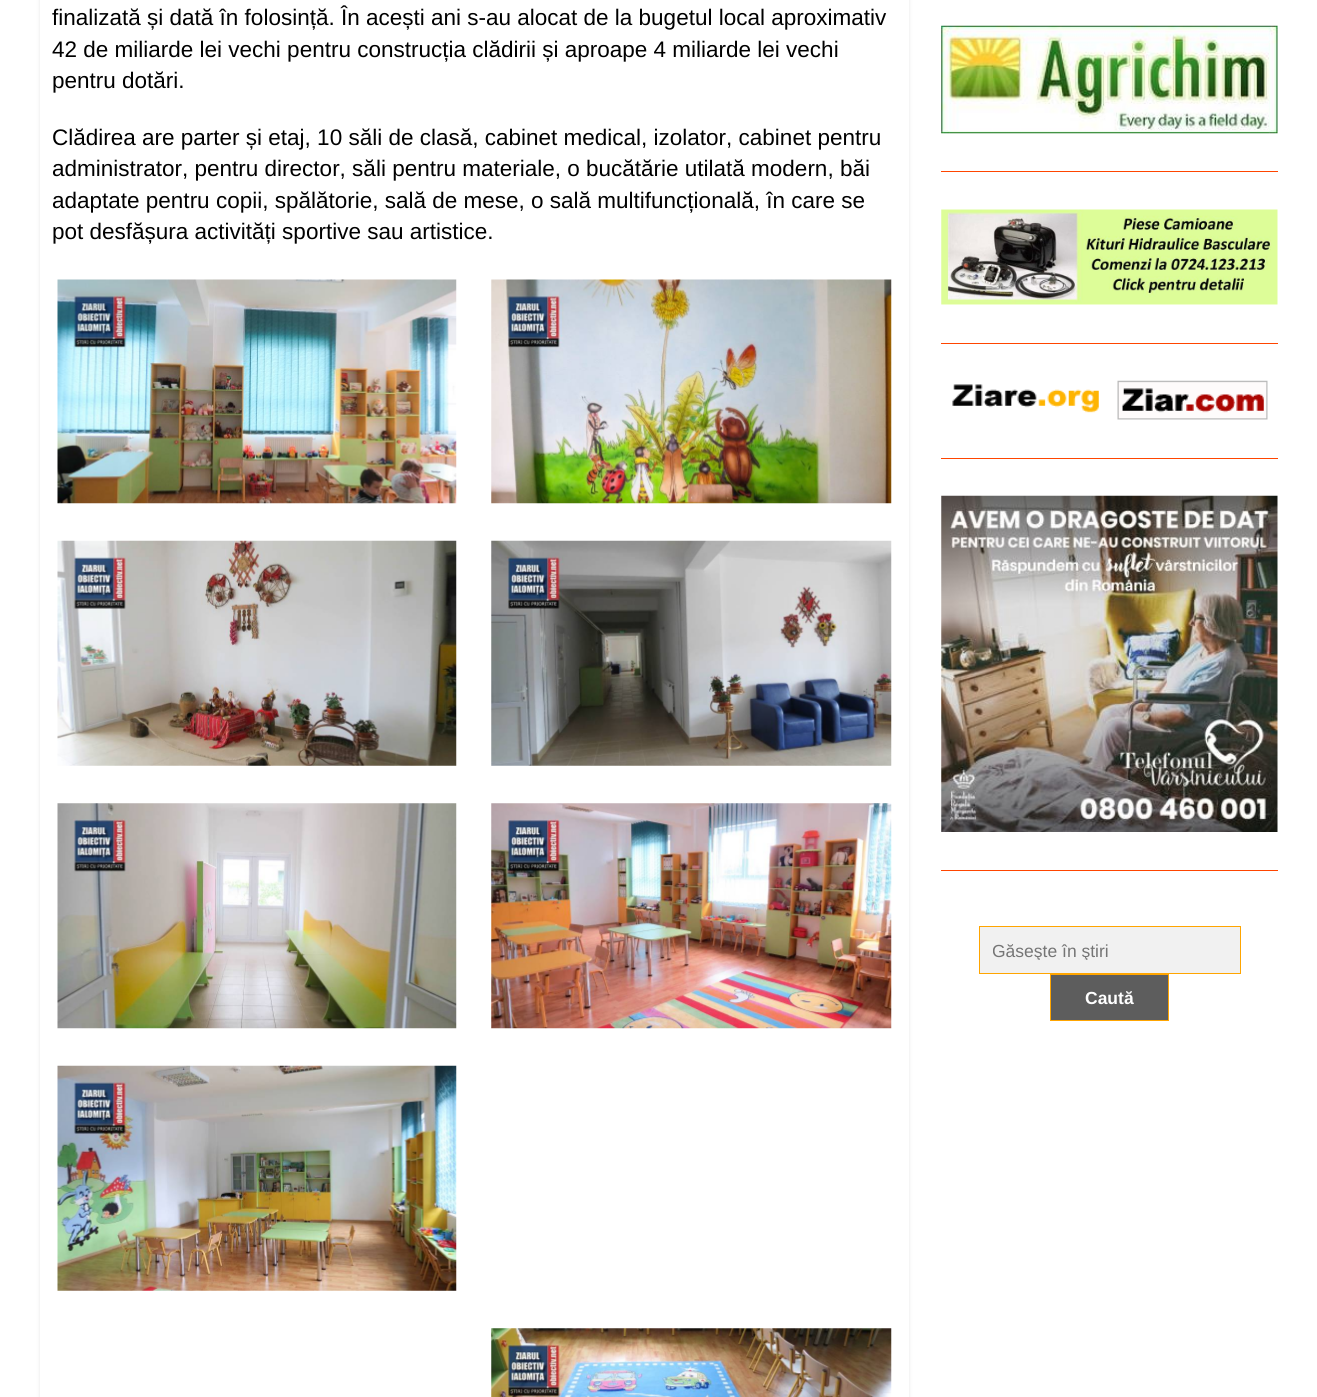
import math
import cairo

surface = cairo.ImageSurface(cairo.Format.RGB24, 1317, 1397)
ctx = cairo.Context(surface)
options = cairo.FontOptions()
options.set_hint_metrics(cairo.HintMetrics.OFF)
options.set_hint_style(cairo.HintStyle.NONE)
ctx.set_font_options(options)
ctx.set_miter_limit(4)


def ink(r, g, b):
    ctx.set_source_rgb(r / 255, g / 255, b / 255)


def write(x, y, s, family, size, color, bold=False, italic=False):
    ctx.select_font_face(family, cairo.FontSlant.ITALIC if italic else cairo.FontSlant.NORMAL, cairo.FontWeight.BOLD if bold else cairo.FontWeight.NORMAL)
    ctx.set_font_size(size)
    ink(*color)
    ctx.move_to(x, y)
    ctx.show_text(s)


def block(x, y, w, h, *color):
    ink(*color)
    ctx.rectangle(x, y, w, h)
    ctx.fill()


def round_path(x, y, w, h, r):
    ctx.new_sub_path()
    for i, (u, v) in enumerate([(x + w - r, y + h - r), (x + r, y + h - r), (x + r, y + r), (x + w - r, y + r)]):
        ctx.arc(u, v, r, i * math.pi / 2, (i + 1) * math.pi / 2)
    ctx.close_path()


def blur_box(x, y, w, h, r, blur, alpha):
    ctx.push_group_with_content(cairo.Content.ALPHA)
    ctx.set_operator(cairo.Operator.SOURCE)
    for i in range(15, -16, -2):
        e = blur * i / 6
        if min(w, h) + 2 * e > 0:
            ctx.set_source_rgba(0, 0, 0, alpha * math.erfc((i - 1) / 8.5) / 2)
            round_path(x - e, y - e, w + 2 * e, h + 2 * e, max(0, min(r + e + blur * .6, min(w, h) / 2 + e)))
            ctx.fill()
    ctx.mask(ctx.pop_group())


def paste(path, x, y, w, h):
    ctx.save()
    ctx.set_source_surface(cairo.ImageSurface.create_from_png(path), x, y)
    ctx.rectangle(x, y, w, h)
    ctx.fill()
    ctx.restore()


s1 = dict(family="Liberation Sans", size=22.5, color=(0, 0, 0))
s2 = dict(family="Liberation Sans", size=17.5, color=(117, 117, 117))
s3 = dict(family="Liberation Sans", size=17.5, color=(255, 255, 255), bold=True)

ink(255, 255, 255)
ctx.paint()
ctx.save()
ctx.set_fill_rule(cairo.FillRule.EVEN_ODD)
ctx.new_path()
ctx.move_to(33, 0)
ctx.line_to(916, 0)
ctx.line_to(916, 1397)
ctx.line_to(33, 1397)
ctx.close_path()
ctx.move_to(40, -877)
ctx.line_to(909, -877)
ctx.line_to(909, 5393)
ctx.line_to(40, 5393)
ctx.close_path()
ctx.clip()
ink(0, 0, 0)
blur_box(40, -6, 869, 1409, 0, 2, 0.1)
ctx.restore()
write(52, 25, "finalizată și dată în folosință. În acești ani s-au alocat de la bugetul local aproximativ", **s1)
write(52, 57, "42 de miliarde lei vechi pentru construcția clădirii și aproape 4 miliarde lei vechi", **s1)
write(52, 88, "pentru dotări.", **s1)
write(52, 145, "Clădirea are parter și etaj, 10 săli de clasă, cabinet medical, izolator, cabinet pentru", **s1)
write(52, 176, "administrator, pentru director, săli pentru materiale, o bucătărie utilată modern, băi", **s1)
write(52, 208, "adaptate pentru copii, spălătorie, sală de mese, o sală multifuncțională, în care se", **s1)
write(52, 239, "pot desfășura activități sportive sau artistice.", **s1)
paste("pic1.png", 57, 279, 400, 225)
paste("pic2.png", 491, 279, 401, 225)
paste("pic3.png", 57, 540, 400, 226)
paste("pic4.png", 491, 540, 401, 226)
paste("pic5.png", 57, 803, 400, 226)
paste("pic6.png", 491, 803, 401, 226)
paste("pic7.png", 57, 1065, 400, 226)
paste("pic8.png", 491, 1328, 401, 69)
paste("pic9.png", 941, 25, 337, 109)
block(941, 171, 337, 1, 255, 69, 0)
paste("pic10.png", 941, 209, 337, 96)
block(941, 343, 337, 1, 255, 69, 0)
paste("pic11.png", 952, 384, 147, 29)
paste("pic12.png", 1117, 380, 151, 40)
block(941, 458, 337, 1, 255, 69, 0)
paste("pic13.png", 941, 495, 337, 337)
block(941, 870, 337, 1, 255, 69, 0)
ink(241, 241, 241)
ctx.rectangle(979.5, 926.5, 261, 47)
ctx.fill_preserve()
ink(255, 165, 0)
ctx.set_line_width(1)
ctx.stroke()
ctx.save()
ctx.rectangle(993, 940, 235, 20)
ctx.clip()
write(992, 957, "Găseşte în ştiri", **s2)
ctx.restore()
ink(93, 93, 93)
ctx.rectangle(1050.5, 974.5, 118, 46)
ctx.fill_preserve()
ink(255, 165, 0)
ctx.stroke()
write(1085, 1004, "Caută", **s3)
surface.write_to_png("screenshot.png")
